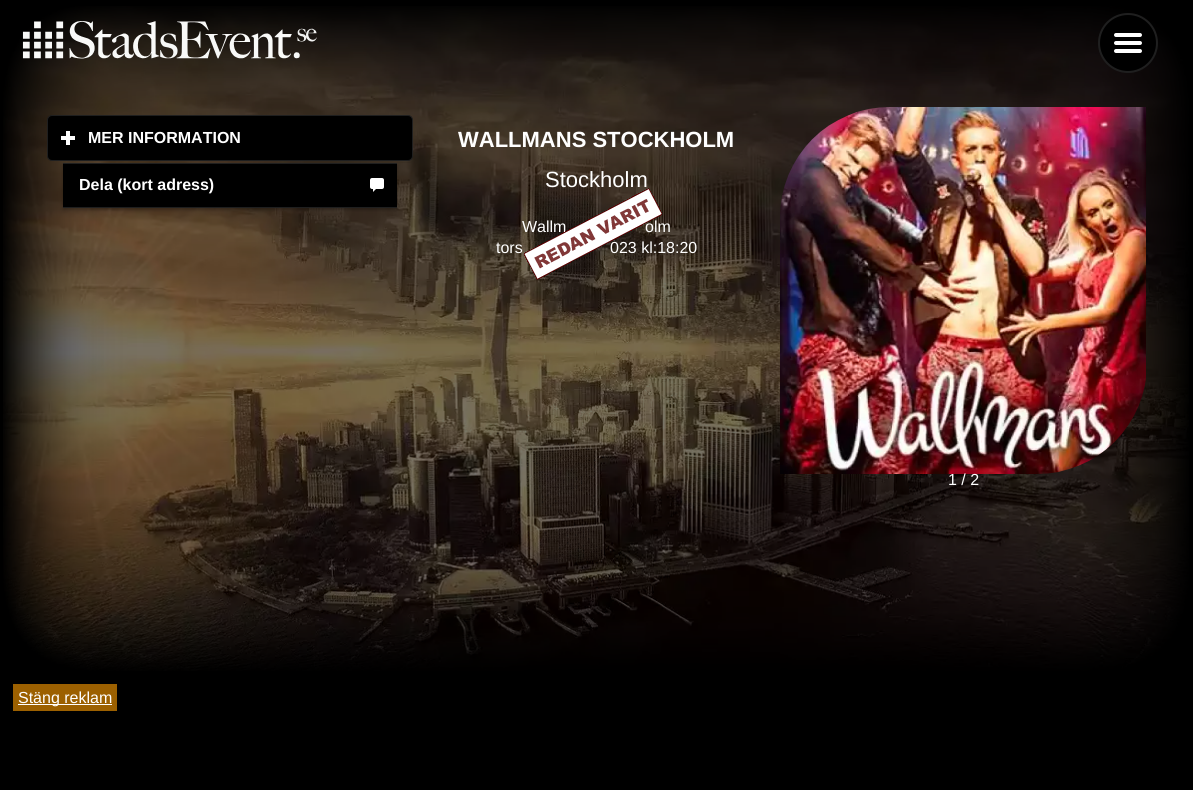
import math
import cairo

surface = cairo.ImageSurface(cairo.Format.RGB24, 1193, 790)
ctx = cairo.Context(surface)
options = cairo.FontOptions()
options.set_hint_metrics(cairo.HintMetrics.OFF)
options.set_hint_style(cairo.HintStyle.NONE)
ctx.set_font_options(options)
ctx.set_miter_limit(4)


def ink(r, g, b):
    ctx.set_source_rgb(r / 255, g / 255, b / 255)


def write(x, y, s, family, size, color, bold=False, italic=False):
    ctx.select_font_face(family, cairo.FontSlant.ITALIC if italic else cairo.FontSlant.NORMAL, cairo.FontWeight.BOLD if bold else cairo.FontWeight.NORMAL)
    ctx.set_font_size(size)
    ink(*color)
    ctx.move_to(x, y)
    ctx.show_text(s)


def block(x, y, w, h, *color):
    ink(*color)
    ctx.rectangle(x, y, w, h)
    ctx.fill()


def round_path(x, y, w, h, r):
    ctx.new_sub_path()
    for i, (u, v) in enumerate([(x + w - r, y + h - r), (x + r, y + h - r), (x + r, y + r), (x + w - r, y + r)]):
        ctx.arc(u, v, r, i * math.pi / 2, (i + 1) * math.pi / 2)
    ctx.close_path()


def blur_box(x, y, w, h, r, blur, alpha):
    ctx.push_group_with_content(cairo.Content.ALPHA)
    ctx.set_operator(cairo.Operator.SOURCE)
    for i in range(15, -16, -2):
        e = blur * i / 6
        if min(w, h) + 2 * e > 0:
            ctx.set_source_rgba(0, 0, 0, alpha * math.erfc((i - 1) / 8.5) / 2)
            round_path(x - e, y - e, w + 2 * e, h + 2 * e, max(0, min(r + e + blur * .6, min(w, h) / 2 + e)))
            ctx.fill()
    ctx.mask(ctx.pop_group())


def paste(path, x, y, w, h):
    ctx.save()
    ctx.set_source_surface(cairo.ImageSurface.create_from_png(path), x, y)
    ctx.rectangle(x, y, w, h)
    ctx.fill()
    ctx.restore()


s1 = dict(family="Liberation Sans", size=16, color=(255, 255, 255), bold=True)
s2 = dict(family="Liberation Sans", size=22, color=(255, 255, 255), bold=True)
s3 = dict(family="Liberation Sans", size=22, color=(255, 255, 255))
s4 = dict(family="Liberation Sans", size=16, color=(255, 255, 255))

ink(0, 0, 0)
ctx.paint()
paste("pic1.png", 3, 6, 1186, 665)
paste("pic2.png", 22, 21, 295, 38)
ink(0, 0, 0)
ctx.arc(1128, 43, 29, 0, 2 * math.pi)
ctx.fill_preserve()
ink(31, 31, 31)
ctx.stroke()
paste("pic3.png", 1114, 33, 28, 20)
ink(0, 0, 0)
round_path(47.5, 115.5, 365, 45, 4.5)
ctx.fill_preserve()
ink(31, 31, 31)
ctx.set_line_width(1)
ctx.stroke()
paste("pic4.png", 61, 131, 14, 14)
write(88, 143, "MER INFORMATION", **s1)
ink(0, 0, 0)
blur_box(63, 165, 334, 45, 0, 1.5, 0.25)
block(63, 164, 334, 43, 0, 0, 0)
block(63, 163, 334, 1, 31, 31, 31)
block(63, 207, 334, 1, 31, 31, 31)
write(79, 190, "Dela (kort adress)", **s1)
paste("pic5.png", 370, 178, 14, 14)
write(458, 147, "WALLMANS STOCKHOLM", **s2)
write(545, 187, "Stockholm", **s3)
write(522, 232, "Wallm", **s4)
write(645, 232, "olm", **s4)
write(610, 253, "023 kl:18:20", **s4)
paste("pic6.png", 524, 188, 138, 92)
write(496, 253, "tors", **s4)
paste("pic7.png", 780, 107, 366, 367)
write(948, 485, "1 / 2", **s4)
block(13, 684, 104, 27, 156, 96, 0)
block(18, 704, 94, 1, 255, 255, 255)
write(18, 703, "Stäng reklam", **s4)
surface.write_to_png("screenshot.png")
